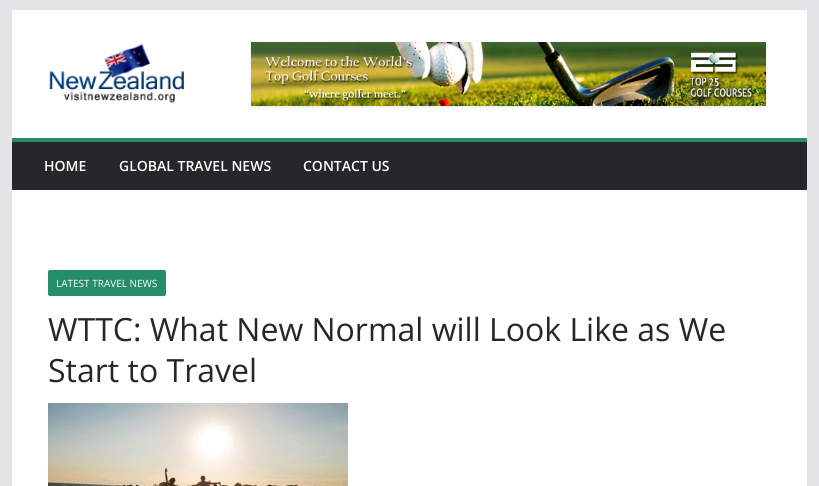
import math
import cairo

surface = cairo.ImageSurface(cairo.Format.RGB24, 819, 486)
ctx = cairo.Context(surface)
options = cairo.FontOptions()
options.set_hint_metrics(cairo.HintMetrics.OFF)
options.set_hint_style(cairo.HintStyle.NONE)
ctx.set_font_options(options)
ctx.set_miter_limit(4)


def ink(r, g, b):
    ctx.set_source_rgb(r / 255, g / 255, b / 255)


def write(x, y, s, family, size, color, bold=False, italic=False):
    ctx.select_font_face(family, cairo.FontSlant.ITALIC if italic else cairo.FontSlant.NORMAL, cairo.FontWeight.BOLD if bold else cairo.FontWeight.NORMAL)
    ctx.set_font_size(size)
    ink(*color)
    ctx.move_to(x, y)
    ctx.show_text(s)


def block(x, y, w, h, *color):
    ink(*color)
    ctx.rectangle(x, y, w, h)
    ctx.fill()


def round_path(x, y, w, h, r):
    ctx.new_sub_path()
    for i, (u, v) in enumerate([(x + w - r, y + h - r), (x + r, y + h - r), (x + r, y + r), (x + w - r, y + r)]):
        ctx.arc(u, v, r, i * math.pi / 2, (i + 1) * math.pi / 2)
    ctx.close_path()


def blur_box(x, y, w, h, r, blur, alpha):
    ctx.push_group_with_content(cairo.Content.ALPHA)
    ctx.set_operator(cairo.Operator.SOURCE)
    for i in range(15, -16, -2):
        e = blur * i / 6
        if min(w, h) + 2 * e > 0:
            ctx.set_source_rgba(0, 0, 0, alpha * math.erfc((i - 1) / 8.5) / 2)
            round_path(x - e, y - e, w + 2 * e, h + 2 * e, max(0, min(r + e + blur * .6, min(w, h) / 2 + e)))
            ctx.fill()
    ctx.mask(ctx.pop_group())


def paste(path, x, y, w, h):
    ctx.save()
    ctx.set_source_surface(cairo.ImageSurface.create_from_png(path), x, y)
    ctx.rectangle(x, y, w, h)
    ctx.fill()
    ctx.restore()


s1 = dict(family="Open Sans SemiBold", size=14, color=(255, 255, 255))
s2 = dict(family="Open Sans", size=10, color=(255, 255, 255))
s3 = dict(family="Open Sans", size=32, color=(39, 39, 42))

ink(228, 228, 231)
ctx.paint()
block(12, 10, 795, 128, 255, 255, 255)
paste("pic1.png", 49, 43, 135, 60)
ink(0, 0, 0)
blur_box(251, 43, 515, 64, 0, 1.5, 0.1)
paste("pic2.png", 251, 42, 515, 64)
block(12, 142, 795, 48, 39, 39, 42)
block(12, 138, 795, 4, 37, 142, 103)
write(44, 171, "HOME", **s1)
write(119, 171, "GLOBAL TRAVEL NEWS", **s1)
write(303, 171, "CONTACT US", **s1)
block(12, 190, 795, 296, 255, 255, 255)
ink(37, 142, 103)
round_path(48, 270, 118, 26, 2)
ctx.fill()
write(56, 287, "LATEST TRAVEL NEWS", **s2)
write(48, 341, "WTTC: What New Normal will Look Like as We", **s3)
write(48, 382, "Start to Travel", **s3)
paste("pic3.png", 48, 403, 300, 83)
surface.write_to_png("screenshot.png")
